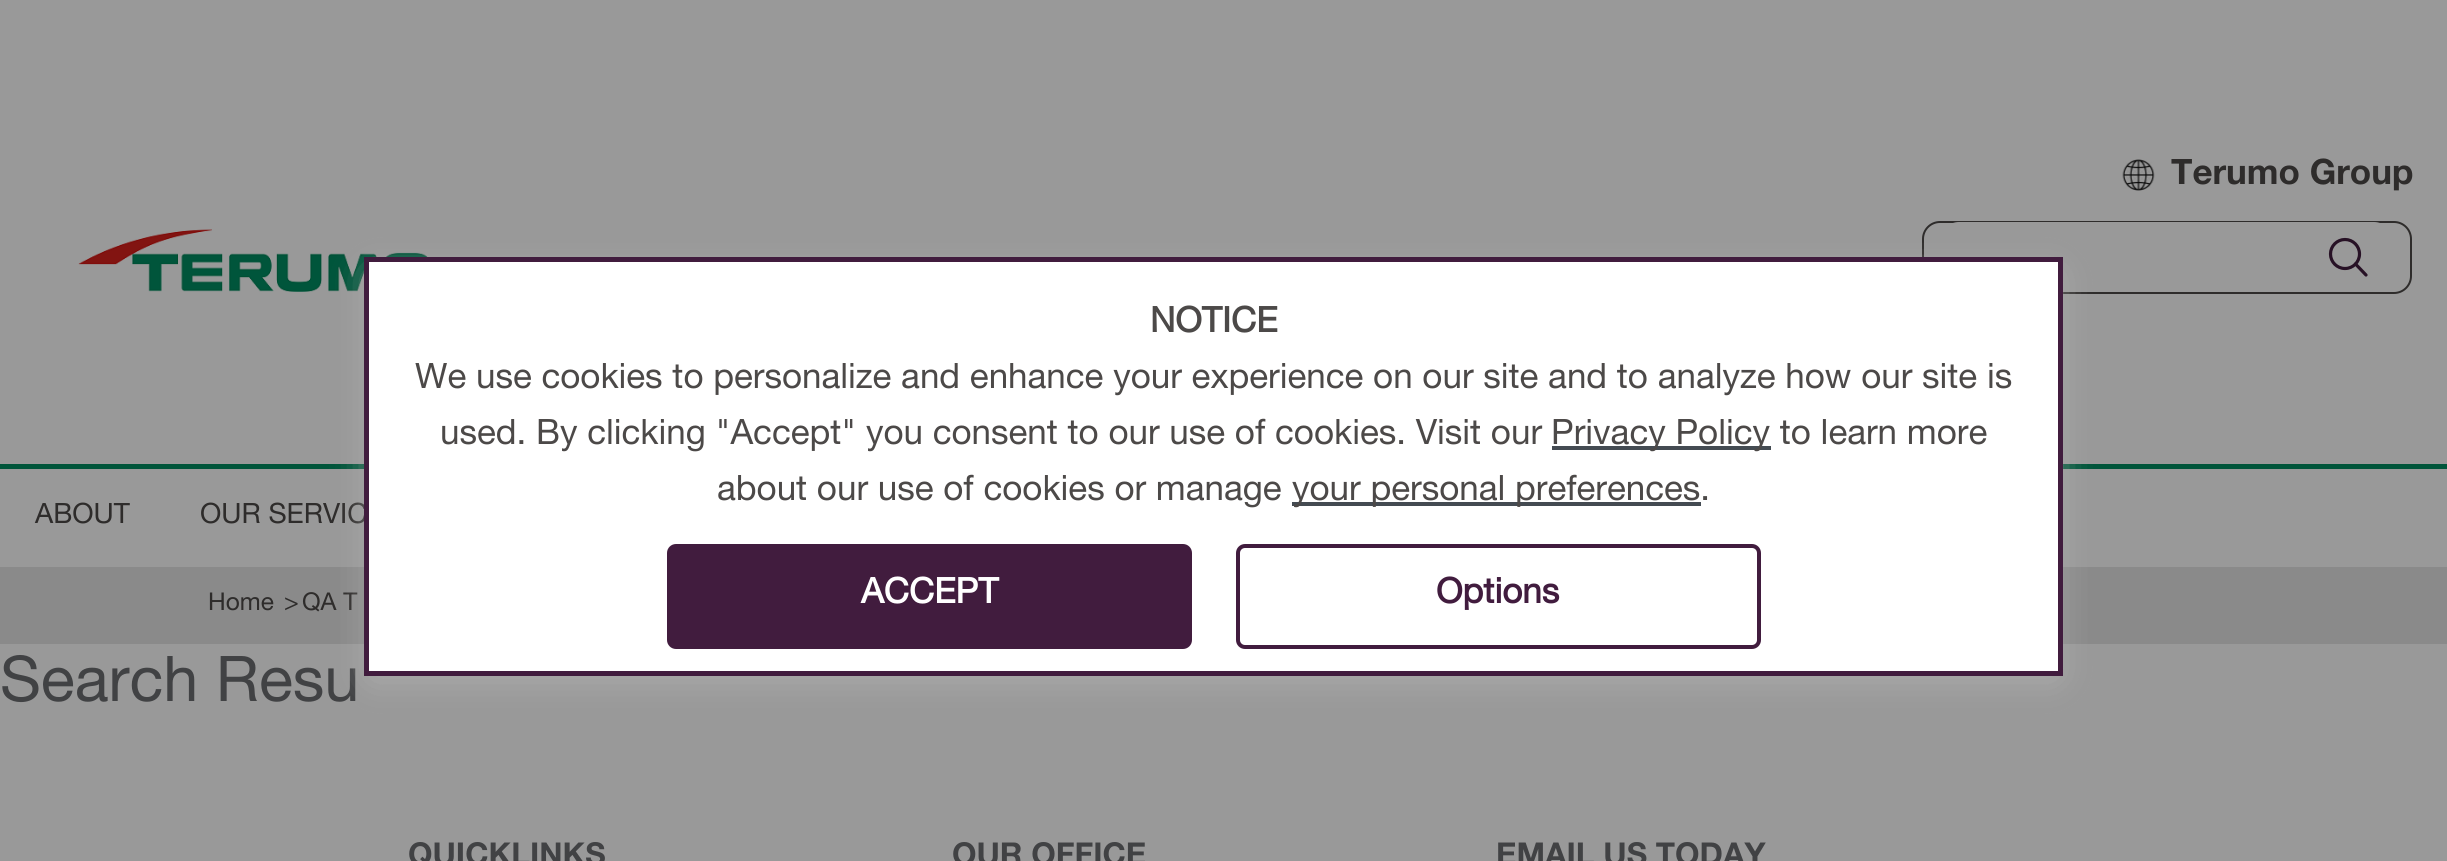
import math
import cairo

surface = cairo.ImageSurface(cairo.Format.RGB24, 2447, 861)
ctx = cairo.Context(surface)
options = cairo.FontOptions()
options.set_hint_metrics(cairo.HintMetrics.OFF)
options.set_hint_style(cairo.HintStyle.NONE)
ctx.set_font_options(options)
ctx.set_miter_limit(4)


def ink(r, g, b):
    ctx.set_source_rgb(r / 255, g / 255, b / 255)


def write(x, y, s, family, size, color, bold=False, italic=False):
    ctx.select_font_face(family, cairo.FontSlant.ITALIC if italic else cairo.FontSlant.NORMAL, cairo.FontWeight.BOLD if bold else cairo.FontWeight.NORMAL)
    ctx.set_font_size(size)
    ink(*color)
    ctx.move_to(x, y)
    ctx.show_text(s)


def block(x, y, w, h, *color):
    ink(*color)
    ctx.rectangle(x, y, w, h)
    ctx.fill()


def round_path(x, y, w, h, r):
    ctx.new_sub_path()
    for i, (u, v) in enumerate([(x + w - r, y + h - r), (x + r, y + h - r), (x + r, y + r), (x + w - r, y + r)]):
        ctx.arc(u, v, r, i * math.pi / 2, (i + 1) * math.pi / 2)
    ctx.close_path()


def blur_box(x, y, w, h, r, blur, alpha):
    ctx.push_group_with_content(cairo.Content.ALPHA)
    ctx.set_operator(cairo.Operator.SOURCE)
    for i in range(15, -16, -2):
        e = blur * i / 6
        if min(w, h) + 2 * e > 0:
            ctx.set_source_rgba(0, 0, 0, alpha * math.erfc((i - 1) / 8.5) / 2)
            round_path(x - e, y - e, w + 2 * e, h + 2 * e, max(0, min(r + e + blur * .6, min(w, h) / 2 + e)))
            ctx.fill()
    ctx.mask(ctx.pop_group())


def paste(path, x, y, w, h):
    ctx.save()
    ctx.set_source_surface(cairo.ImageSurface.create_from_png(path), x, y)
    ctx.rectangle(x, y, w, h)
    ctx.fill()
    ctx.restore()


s1 = dict(family="Helvetica Neue", size=35, color=(46, 44, 43), bold=True)
s2 = dict(family="Helvetica Neue", size=28, color=(46, 44, 43))
s3 = dict(family="Helvetica Neue", size=24.5, color=(46, 44, 43))
s4 = dict(family="Helvetica Neue", size=63, color=(65, 66, 68))
s5 = dict(family="Helvetica Neue", size=31.5, color=(65, 66, 68), bold=True)
s6 = dict(family="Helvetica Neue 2", size=35, color=(76, 73, 72), bold=True)
s7 = dict(family="Helvetica Neue", size=35, color=(76, 73, 72))
s8 = dict(family="Helvetica Neue 2", size=35, color=(255, 255, 255), bold=True)
s9 = dict(family="Helvetica Neue 2", size=35, color=(65, 28, 62), bold=True)

ink(153, 153, 153)
ctx.paint()
paste("pic1.png", 2122, 159, 33, 32)
write(2171, 184, "Terumo Group", **s1)
round_path(1923, 222, 488, 71, 17)
ctx.stroke()
ink(153, 153, 153)
round_path(1941, 222, 451, 70, 18)
ctx.fill()
ctx.arc(2345, 254, 14.5, 0, 2 * math.pi)
ink(39, 17, 37)
ctx.set_line_width(3.2)
ctx.stroke()
ctx.new_path()
ctx.move_to(2355.5, 264)
ctx.line_to(2366, 275)
ctx.set_line_cap(cairo.LineCap.ROUND)
ctx.set_line_join(cairo.LineJoin.ROUND)
ctx.stroke()
paste("pic2.png", 78, 229, 353, 63)
block(0, 464, 2447, 5, 0, 85, 58)
write(35, 523, "ABOUT", **s2)
write(200, 523, "OUR SERVIC", **s2)
block(0, 567, 2447, 77, 138, 138, 138)
write(208, 610, "Home", **s3)
write(284, 610, ">", **s3)
write(302, 610, "QA T", **s3)
write(0, 701, "Search Resu", **s4)
write(408, 865, "QUICKLINKS", **s5)
write(952, 865, "OUR OFFICE", **s5)
write(1496, 865, "EMAIL US TODAY", **s5)
ink(176, 176, 176)
blur_box(373, 275, 1682, 401, 0, 17.5, 1)
ink(255, 255, 255)
ctx.rectangle(366.5, 259.5, 1694, 414)
ctx.fill_preserve()
ink(65, 28, 62)
ctx.set_line_width(5)
ctx.set_line_cap(cairo.LineCap.BUTT)
ctx.set_line_join(cairo.LineJoin.MITER)
ctx.stroke()
write(1150, 332, "NOTICE", **s6)
write(415, 388, "We use cookies to personalize and enhance your experience on our site and to analyze how our site is", **s7)
write(440, 444, "used. By clicking \"Accept\" you consent to our use of cookies. Visit our", **s7)
block(1552, 446, 219, 4, 68, 75, 82)
write(1551, 444, "Privacy Policy to learn more", **s7)
write(717, 500, "about our use of cookies or manage", **s7)
block(1292, 502, 409, 4, 68, 75, 82)
write(1292, 500, "your personal preferences.", **s7)
ink(65, 28, 62)
round_path(667, 544, 525, 105, 9)
ctx.fill()
write(861, 603, "ACCEPT", **s8)
round_path(1238, 546, 521, 101, 7)
ink(65, 28, 62)
ctx.set_line_width(4)
ctx.stroke()
write(1436, 603, "Options", **s9)
surface.write_to_png("screenshot.png")
